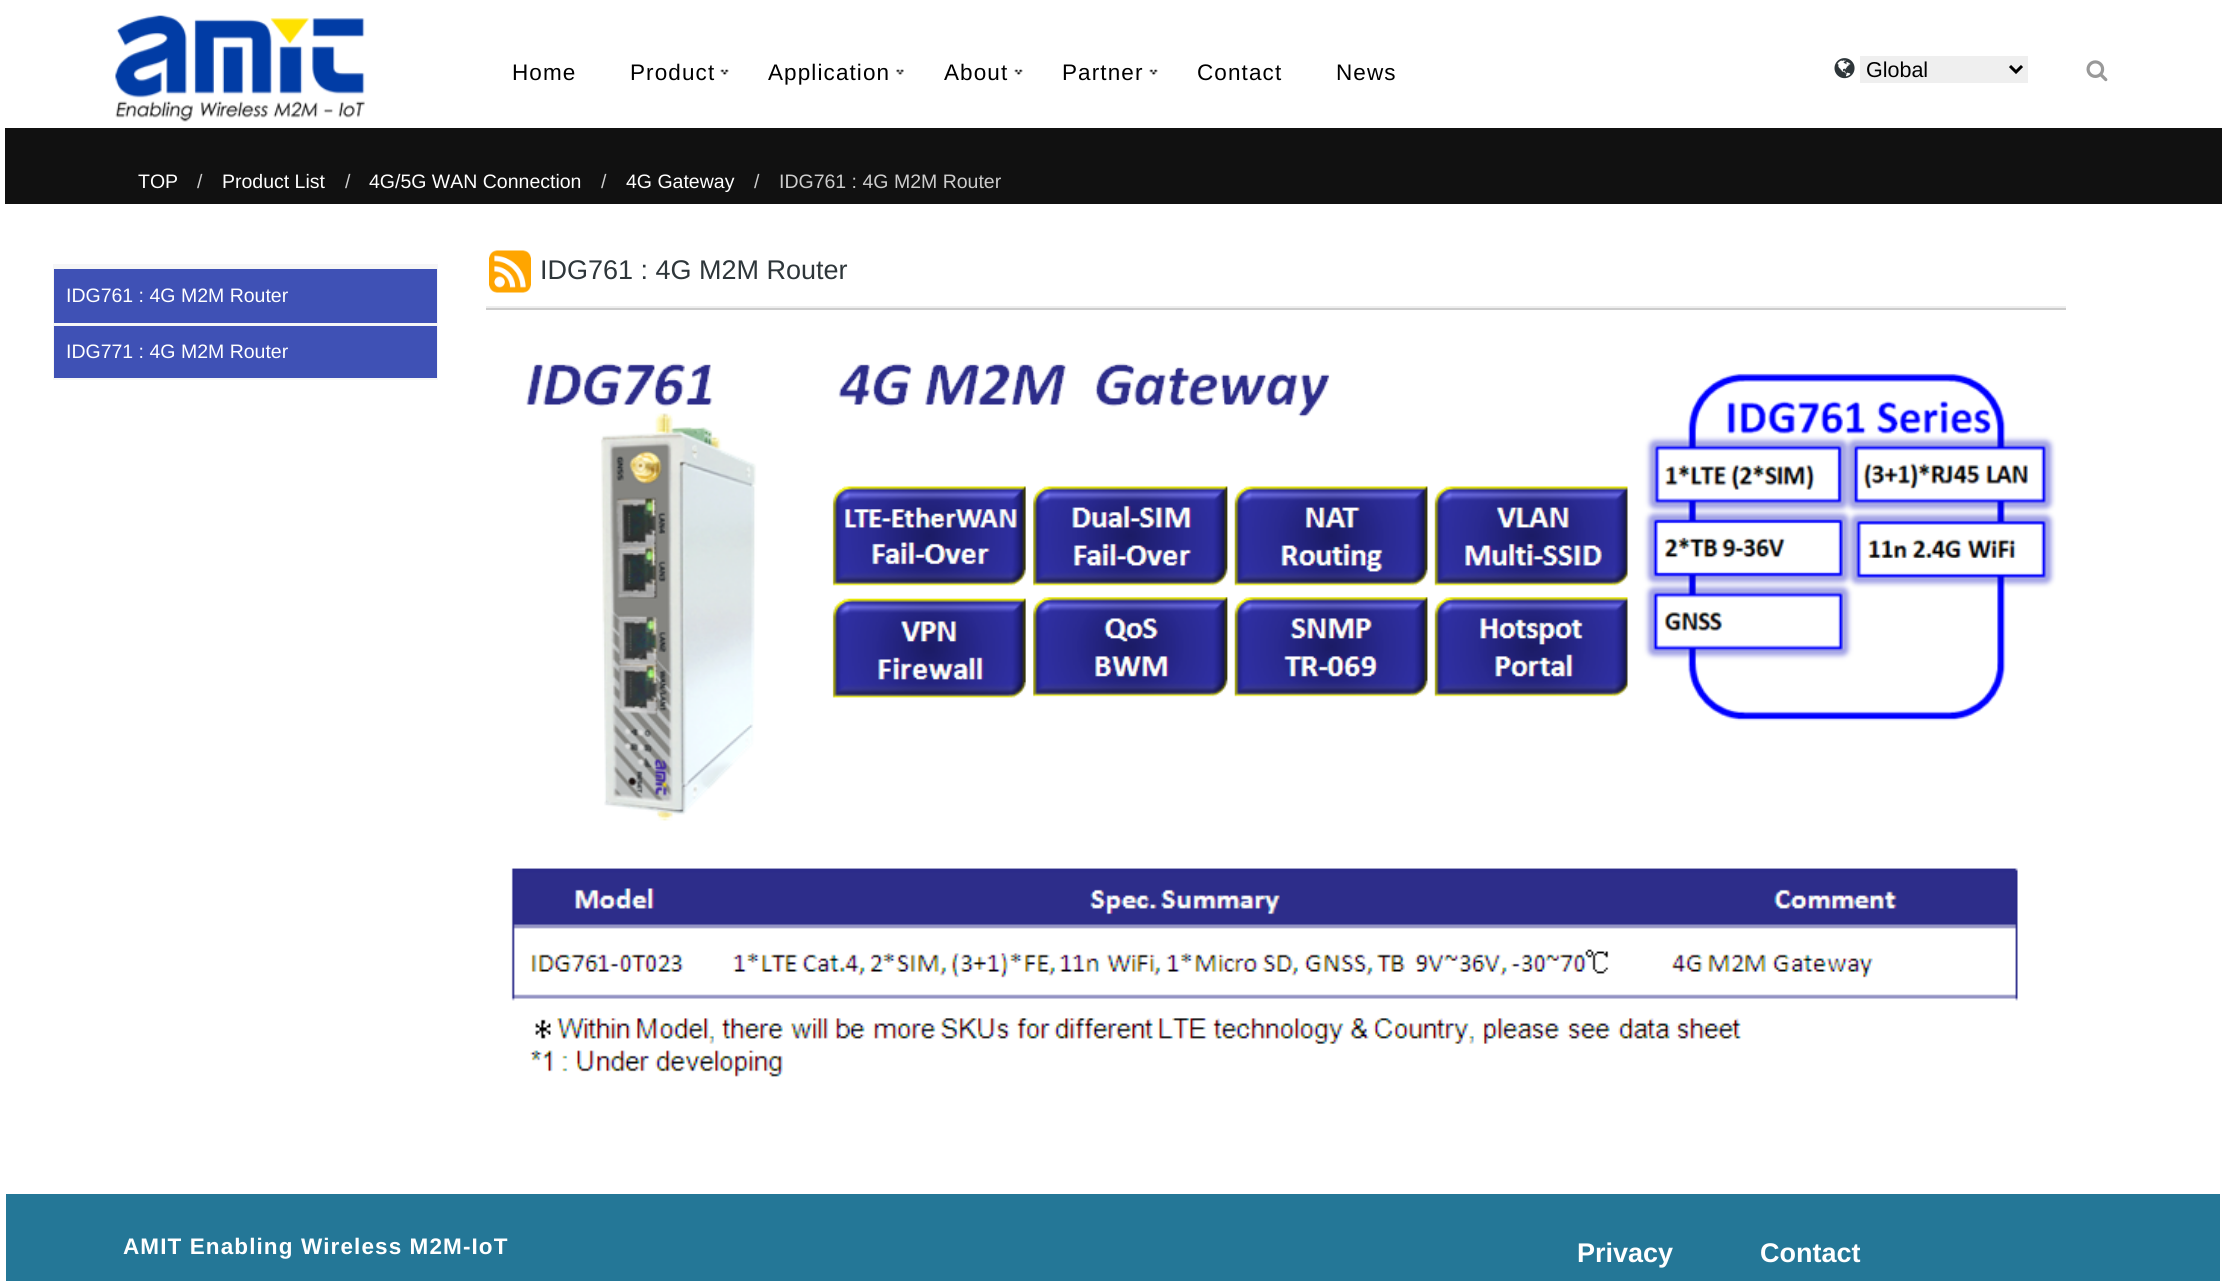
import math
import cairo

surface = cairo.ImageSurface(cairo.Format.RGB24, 2225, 1281)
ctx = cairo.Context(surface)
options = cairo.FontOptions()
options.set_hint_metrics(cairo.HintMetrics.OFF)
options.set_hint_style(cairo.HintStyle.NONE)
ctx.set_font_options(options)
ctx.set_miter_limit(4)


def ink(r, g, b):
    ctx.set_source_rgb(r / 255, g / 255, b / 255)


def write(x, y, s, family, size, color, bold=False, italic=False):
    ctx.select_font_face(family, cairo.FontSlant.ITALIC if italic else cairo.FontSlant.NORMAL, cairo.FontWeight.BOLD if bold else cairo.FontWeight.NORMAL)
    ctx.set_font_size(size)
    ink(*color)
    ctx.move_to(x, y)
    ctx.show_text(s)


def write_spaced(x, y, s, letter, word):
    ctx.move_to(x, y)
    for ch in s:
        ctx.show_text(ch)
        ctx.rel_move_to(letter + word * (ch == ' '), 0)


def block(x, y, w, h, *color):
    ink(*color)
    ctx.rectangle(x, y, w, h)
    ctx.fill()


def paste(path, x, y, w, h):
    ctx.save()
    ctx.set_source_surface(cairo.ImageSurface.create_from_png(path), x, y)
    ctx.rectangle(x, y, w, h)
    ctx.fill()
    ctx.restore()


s1 = dict(family="Liberation Sans", size=21.5, color=(0, 0, 0))
s2 = dict(family="Liberation Sans", size=19.5, color=(255, 255, 255))
s3 = dict(family="Liberation Sans", size=19.5, color=(204, 204, 204))
s4 = dict(family="Liberation Sans", size=27, color=(46, 54, 58))
s5 = dict(family="Liberation Sans", size=27, color=(255, 255, 255), bold=True)

ink(255, 255, 255)
ctx.paint()
paste("pic1.png", 115, 15, 250, 107)
ctx.select_font_face("Liberation Sans")
ctx.set_font_size(22.5)
ink(0, 0, 0)
write_spaced(512, 80, "Home", 1.1, 0)
paste("pic2.png", 720, 69, 9, 6)
write_spaced(630, 80, "Product", 1.1, 0)
paste("pic3.png", 896, 69, 8, 6)
write_spaced(768, 80, "Application", 1.1, 0)
paste("pic2.png", 1014, 69, 9, 6)
write_spaced(944, 80, "About", 1.1, 0)
paste("pic2.png", 1149, 69, 9, 6)
write_spaced(1062, 80, "Partner", 1.1, 0)
write_spaced(1197, 80, "Contact", 1.1, 0)
write_spaced(1336, 80, "News", 1.1, 0)
paste("pic4.png", 1834, 58, 21, 21)
block(1860, 56, 168, 27, 239, 239, 239)
ctx.new_path()
ctx.move_to(2010, 66)
ctx.line_to(2016, 72)
ctx.line_to(2022, 66)
ink(0, 0, 0)
ctx.set_line_width(3)
ctx.stroke()
write(1866, 77, "Global", **s1)
paste("pic5.png", 2086, 60, 22, 22)
block(5, 128, 2217, 76, 17, 17, 17)
write(138, 188, "TOP", **s2)
write(197, 188, "/", **s3)
write(222, 188, "Product List", **s2)
write(345, 188, "/", **s3)
write(369, 188, "4G/5G WAN Connection", **s2)
write(601, 188, "/", **s3)
write(626, 188, "4G Gateway", **s2)
write(754, 188, "/", **s3)
write(779, 188, "IDG761 : 4G M2M Router", **s3)
paste("pic6.png", 489, 250, 42, 43)
write(540, 279, "IDG761 : 4G M2M Router", **s4)
block(486, 306, 1580, 2, 238, 238, 238)
block(486, 308, 1580, 2, 204, 204, 204)
paste("pic7.png", 526, 363, 1530, 458)
paste("pic8.png", 511, 868, 1507, 209)
block(53, 264, 385, 116, 246, 246, 246)
block(54, 269, 383, 54, 63, 81, 181)
write(66, 302, "IDG761 : 4G M2M Router", **s2)
block(54, 326, 383, 52, 63, 81, 181)
write(66, 358, "IDG771 : 4G M2M Router", **s2)
block(6, 1194, 2214, 87, 36, 119, 151)
ctx.select_font_face("Liberation Sans", cairo.FontSlant.NORMAL, cairo.FontWeight.BOLD)
ctx.set_font_size(22.5)
ink(255, 255, 255)
write_spaced(123, 1254, "AMIT Enabling Wireless M2M-IoT", 1.1, 0)
write(1577, 1262, "Privacy", **s5)
write(1760, 1262, "Contact", **s5)
surface.write_to_png("screenshot.png")
